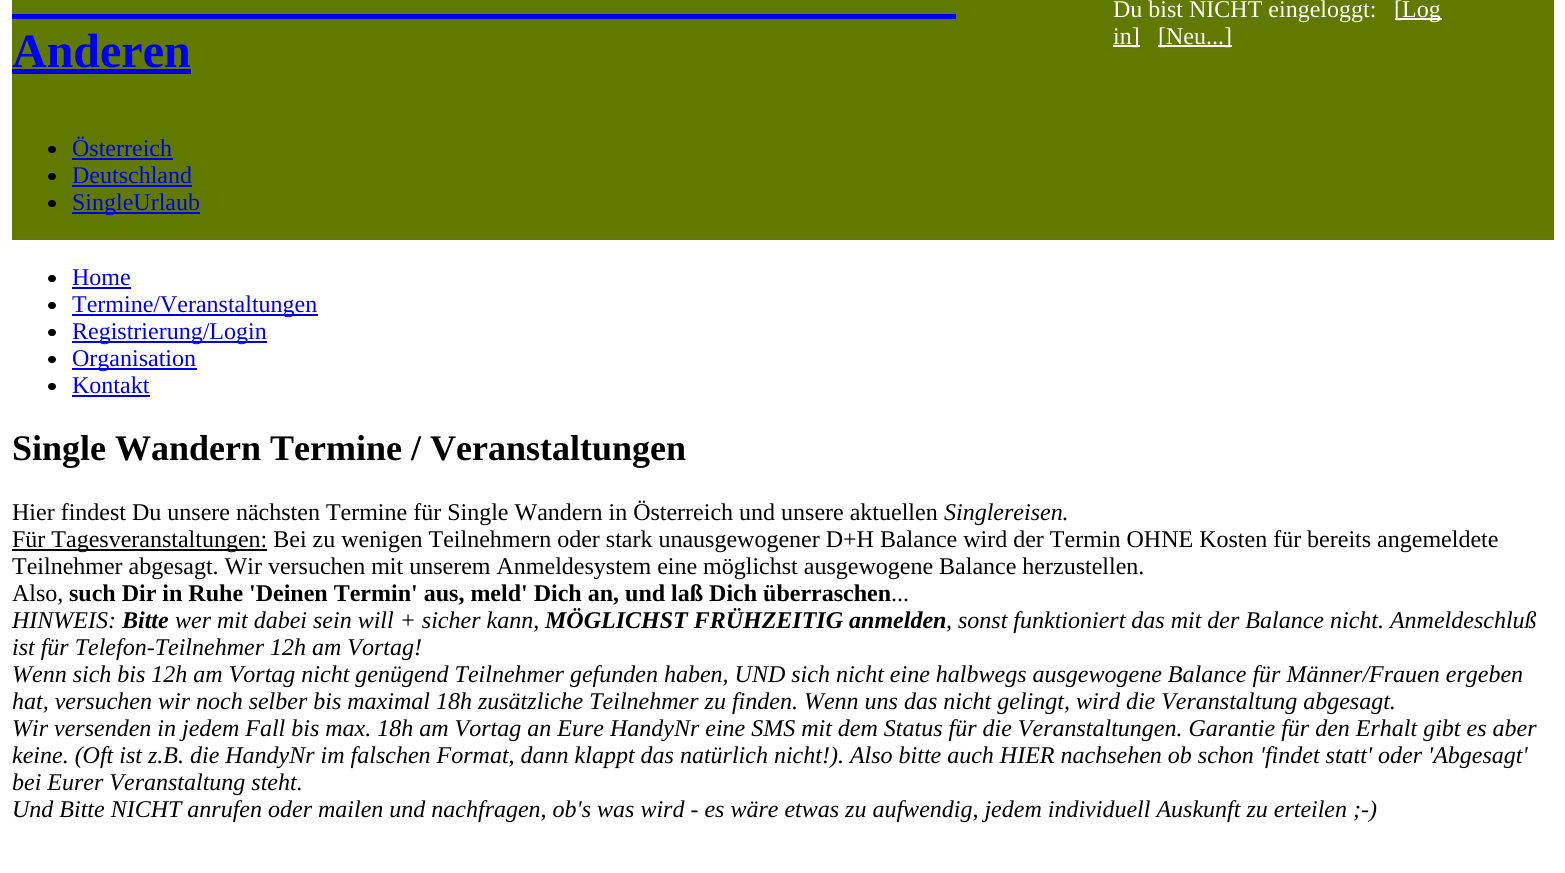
import math
import cairo

surface = cairo.ImageSurface(cairo.Format.RGB24, 1565, 873)
ctx = cairo.Context(surface)
options = cairo.FontOptions()
options.set_hint_metrics(cairo.HintMetrics.OFF)
options.set_hint_style(cairo.HintStyle.NONE)
ctx.set_font_options(options)
ctx.set_miter_limit(4)


def ink(r, g, b):
    ctx.set_source_rgb(r / 255, g / 255, b / 255)


def write(x, y, s, family, size, color, bold=False, italic=False):
    ctx.select_font_face(family, cairo.FontSlant.ITALIC if italic else cairo.FontSlant.NORMAL, cairo.FontWeight.BOLD if bold else cairo.FontWeight.NORMAL)
    ctx.set_font_size(size)
    ink(*color)
    ctx.move_to(x, y)
    ctx.show_text(s)


def block(x, y, w, h, *color):
    ink(*color)
    ctx.rectangle(x, y, w, h)
    ctx.fill()


def round_path(x, y, w, h, r):
    ctx.new_sub_path()
    for i, (u, v) in enumerate([(x + w - r, y + h - r), (x + r, y + h - r), (x + r, y + r), (x + w - r, y + r)]):
        ctx.arc(u, v, r, i * math.pi / 2, (i + 1) * math.pi / 2)
    ctx.close_path()


s1 = dict(family="Liberation Serif", size=48, color=(0, 0, 238), bold=True)
s2 = dict(family="Liberation Serif", size=24, color=(255, 255, 255))
s3 = dict(family="Liberation Serif", size=24, color=(0, 0, 238))
s4 = dict(family="Liberation Serif", size=36, color=(0, 0, 0), bold=True)
s5 = dict(family="Liberation Serif", size=24, color=(0, 0, 0))
s6 = dict(family="Liberation Serif", size=24, color=(0, 0, 0), italic=True)
s7 = dict(family="Liberation Serif", size=24, color=(0, 0, 0), bold=True)
s8 = dict(family="Liberation Serif", size=24, color=(0, 0, 0), bold=True, italic=True)

ink(255, 255, 255)
ctx.paint()
block(12, 0, 1542, 240, 96, 122, 0)
write(12, 67, "Anderen", **s1)
block(12, 14, 944, 5, 0, 0, 238)
block(12, 69, 179, 5, 0, 0, 238)
write(1113, 17, "Du bist NICHT eingeloggt:", **s2)
block(1395, 18, 47, 2, 255, 255, 255)
write(1394, 17, "[Log", **s2)
block(1113, 45, 27, 2, 255, 255, 255)
write(1113, 44, "in]", **s2)
block(1158, 45, 74, 2, 255, 255, 255)
write(1158, 44, "[Neu...]", **s2)
ink(0, 0, 0)
round_path(48, 146, 8, 7, 3.5)
ctx.fill()
write(72, 156, "Österreich", **s3)
block(72, 158, 101, 2, 0, 0, 238)
ink(0, 0, 0)
round_path(48, 173, 8, 7, 3.5)
ctx.fill()
write(72, 183, "Deutschland", **s3)
block(72, 185, 120, 2, 0, 0, 238)
ink(0, 0, 0)
round_path(48, 200, 8, 7, 3.5)
ctx.fill()
block(72, 212, 128, 2, 0, 0, 238)
write(72, 210, "SingleUrlaub", **s3)
ink(0, 0, 0)
round_path(48, 275, 8, 7, 3.5)
ctx.fill()
write(72, 285, "Home", **s3)
block(72, 287, 59, 2, 0, 0, 238)
ink(0, 0, 0)
round_path(48, 302, 8, 7, 3.5)
ctx.fill()
block(72, 314, 246, 2, 0, 0, 238)
write(72, 312, "Termine/Veranstaltungen", **s3)
ink(0, 0, 0)
round_path(48, 329, 8, 7, 3.5)
ctx.fill()
block(72, 341, 195, 2, 0, 0, 238)
write(72, 339, "Registrierung/Login", **s3)
ink(0, 0, 0)
round_path(48, 356, 8, 7, 3.5)
ctx.fill()
block(72, 368, 125, 2, 0, 0, 238)
write(72, 366, "Organisation", **s3)
ink(0, 0, 0)
round_path(48, 383, 8, 7, 3.5)
ctx.fill()
write(72, 393, "Kontakt", **s3)
block(72, 395, 78, 2, 0, 0, 238)
write(12, 460, "Single Wandern Termine / Veranstaltungen", **s4)
write(12, 520, "Hier findest Du unsere nächsten Termine für Single Wandern in Österreich und unsere aktuellen", **s5)
write(944, 520, "Singlereisen", **s6)
write(1062, 520, ".", **s5)
block(12, 549, 255, 2, 0, 0, 0)
write(12, 547, "Für Tagesveranstaltungen: Bei zu wenigen Teilnehmern oder stark unausgewogener D+H Balance wird der Termin OHNE Kosten für bereits angemeldete", **s5)
write(12, 574, "Teilnehmer abgesagt. Wir versuchen mit unserem Anmeldesystem eine möglichst ausgewogene Balance herzustellen.", **s5)
write(12, 601, "Also,", **s5)
write(69, 601, "such Dir in Ruhe 'Deinen Termin' aus, meld' Dich an, und laß Dich überraschen", **s7)
write(891, 601, "...", **s5)
write(12, 628, "HINWEIS:", **s6)
write(122, 628, "Bitte", **s8)
write(175, 628, "wer mit dabei sein will + sicher kann,", **s6)
write(545, 628, "MÖGLICHST FRÜHZEITIG anmelden", **s8)
write(946, 628, ", sonst funktioniert das mit der Balance nicht. Anmeldeschluß", **s6)
write(12, 655, "ist für Telefon-Teilnehmer 12h am Vortag!", **s6)
write(12, 682, "Wenn sich bis 12h am Vortag nicht genügend Teilnehmer gefunden haben, UND sich nicht eine halbwegs ausgewogene Balance für Männer/Frauen ergeben", **s6)
write(12, 709, "hat, versuchen wir noch selber bis maximal 18h zusätzliche Teilnehmer zu finden. Wenn uns das nicht gelingt, wird die Veranstaltung abgesagt.", **s6)
write(12, 736, "Wir versenden in jedem Fall bis max. 18h am Vortag an Eure HandyNr eine SMS mit dem Status für die Veranstaltungen. Garantie für den Erhalt gibt es aber", **s6)
write(12, 763, "keine. (Oft ist z.B. die HandyNr im falschen Format, dann klappt das natürlich nicht!). Also bitte auch HIER nachsehen ob schon 'findet statt' oder 'Abgesagt'", **s6)
write(12, 790, "bei Eurer Veranstaltung steht.", **s6)
write(12, 817, "Und Bitte NICHT anrufen oder mailen und nachfragen, ob's was wird - es wäre etwas zu aufwendig, jedem individuell Auskunft zu erteilen ;-)", **s6)
surface.write_to_png("screenshot.png")
